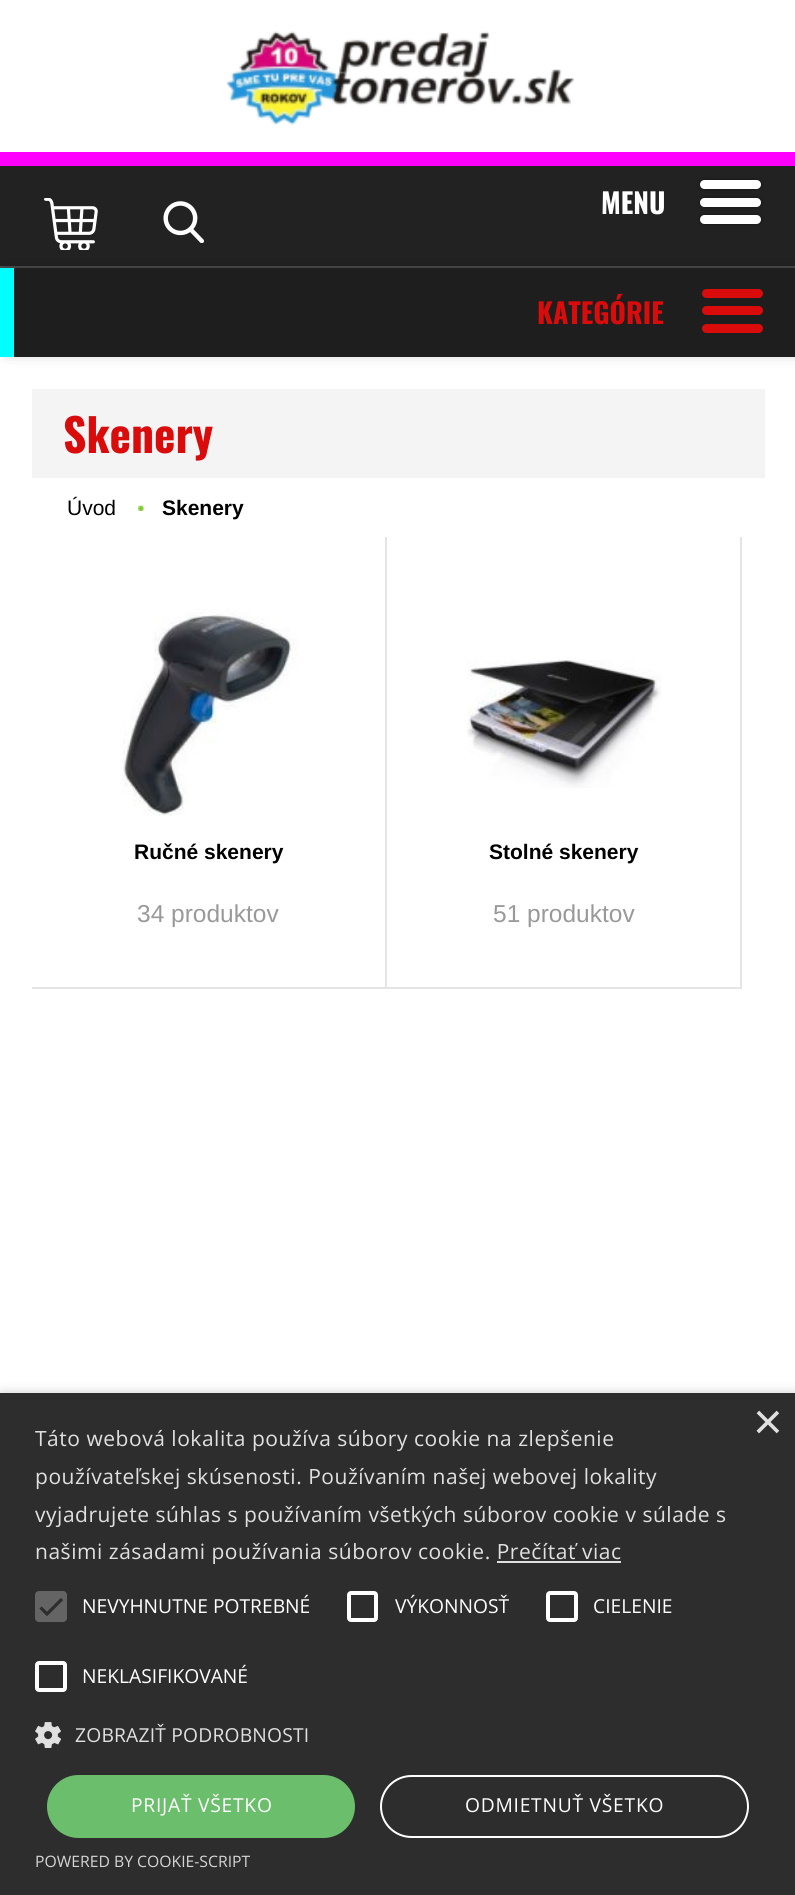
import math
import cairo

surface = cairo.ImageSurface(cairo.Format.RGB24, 795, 1895)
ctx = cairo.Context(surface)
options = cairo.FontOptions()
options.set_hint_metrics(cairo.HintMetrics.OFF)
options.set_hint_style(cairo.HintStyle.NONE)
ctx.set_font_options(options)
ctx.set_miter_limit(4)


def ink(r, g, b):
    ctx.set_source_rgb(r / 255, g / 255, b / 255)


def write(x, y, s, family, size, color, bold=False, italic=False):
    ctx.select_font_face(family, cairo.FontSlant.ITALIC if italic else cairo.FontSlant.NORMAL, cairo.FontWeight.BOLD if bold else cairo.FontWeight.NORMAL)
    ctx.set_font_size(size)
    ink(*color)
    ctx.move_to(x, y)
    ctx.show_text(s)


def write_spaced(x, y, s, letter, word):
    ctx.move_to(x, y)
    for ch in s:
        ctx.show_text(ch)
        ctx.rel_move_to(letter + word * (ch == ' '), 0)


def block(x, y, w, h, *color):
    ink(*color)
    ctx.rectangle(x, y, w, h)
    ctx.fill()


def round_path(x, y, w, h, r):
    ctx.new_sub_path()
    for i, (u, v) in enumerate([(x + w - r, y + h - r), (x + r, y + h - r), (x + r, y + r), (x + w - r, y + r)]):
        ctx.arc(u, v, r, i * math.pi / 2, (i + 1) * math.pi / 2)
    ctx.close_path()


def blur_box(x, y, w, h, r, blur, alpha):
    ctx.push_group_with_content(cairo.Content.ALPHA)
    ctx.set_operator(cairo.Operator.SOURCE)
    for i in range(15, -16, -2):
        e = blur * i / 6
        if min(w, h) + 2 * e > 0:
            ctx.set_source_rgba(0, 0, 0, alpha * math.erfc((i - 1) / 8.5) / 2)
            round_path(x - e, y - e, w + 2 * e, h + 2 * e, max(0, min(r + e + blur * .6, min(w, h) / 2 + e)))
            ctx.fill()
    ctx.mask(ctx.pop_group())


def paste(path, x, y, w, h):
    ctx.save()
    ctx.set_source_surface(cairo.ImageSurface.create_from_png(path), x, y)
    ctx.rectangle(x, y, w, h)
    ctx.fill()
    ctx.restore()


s1 = dict(family="Oswald", size=28, color=(255, 255, 255), bold=True)
s2 = dict(family="Oswald", size=28, color=(217, 11, 11), bold=True)
s3 = dict(family="Oswald", size=45.5, color=(217, 11, 11), bold=True)
s4 = dict(family="Liberation Sans", size=21, color=(0, 0, 0))
s5 = dict(family="Liberation Sans", size=21, color=(0, 0, 0), bold=True)
s6 = dict(family="Liberation Sans", size=24.5, color=(153, 153, 153))
s7 = dict(family="Liberation Sans", size=51, color=(224, 224, 224))
s8 = dict(family="Open Sans", size=19.25, color=(255, 255, 255))
s9 = dict(family="Open Sans", size=15.75, color=(213, 213, 213))

ink(255, 255, 255)
ctx.paint()
paste("pic1.png", 226, 31, 348, 94)
block(0, 166, 795, 100, 34, 34, 34)
block(0, 152, 795, 14, 255, 0, 255)
block(0, 266, 795, 2, 76, 76, 76)
ink(0, 0, 0)
blur_box(7, 268, 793, 86, 0, 6, 0.25)
paste("pic2.png", 44, 198, 54, 52)
paste("pic3.png", 163, 201, 41, 42)
write(601, 214, "MENU", **s1)
ink(0, 0, 0)
blur_box(700, 180, 61, 9, 4.5, 2, 0.4)
ink(255, 255, 255)
round_path(700, 180, 61, 9, 4.5)
ctx.fill()
ink(0, 0, 0)
blur_box(700, 198, 61, 9, 4.5, 2, 0.4)
ink(255, 255, 255)
round_path(700, 198, 61, 9, 4.5)
ctx.fill()
ink(0, 0, 0)
blur_box(700, 215, 61, 9, 4.5, 2, 0.4)
ink(255, 255, 255)
round_path(700, 215, 61, 9, 4.5)
ctx.fill()
block(0, 268, 14, 89, 0, 255, 255)
block(14, 268, 781, 89, 30, 30, 30)
write(537, 324, "KATEGÓRIE", **s2)
round_path(702, 289, 61, 9, 4.5)
ctx.fill()
round_path(702, 306, 61, 9, 4.5)
ctx.fill()
round_path(702, 324, 61, 9, 4.5)
ctx.fill()
block(32, 389, 733, 89, 244, 244, 244)
write(63, 453, "Skenery", **s3)
write(67, 515, "Úvod", **s4)
paste("pic4.png", 138, 505, 6, 6)
write(162, 515, "Skenery", **s5)
block(385, 537, 2, 452, 229, 229, 229)
block(32, 987, 355, 2, 229, 229, 229)
paste("pic5.png", 122, 609, 177, 207)
write(134, 859, "Ručné skenery", **s5)
write(137, 922, "34 produktov", **s6)
block(740, 537, 2, 452, 229, 229, 229)
block(387, 987, 355, 2, 229, 229, 229)
paste("pic6.png", 467, 660, 195, 128)
write(489, 859, "Stolné skenery", **s5)
write(493, 922, "51 produktov", **s6)
ink(0, 0, 0)
blur_box(2, 1397, 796, 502, 0, 7, 0.35)
block(0, 1393, 795, 502, 45, 45, 45)
write(753, 1439, "×", **s7)
ctx.select_font_face("Open Sans")
ctx.set_font_size(21)
write_spaced(35, 1446, "Táto webová lokalita používa súbory cookie na zlepšenie", 0.53, 0)
write_spaced(35, 1484, "používateľskej skúsenosti. Používaním našej webovej lokality", 0.53, 0)
write_spaced(35, 1522, "vyjadrujete súhlas s používaním všetkých súborov cookie v súlade s", 0.53, 0)
write_spaced(35, 1559, "našimi zásadami používania súborov cookie. Prečítať viac", 0.53, 0)
block(497, 1561, 124, 2, 224, 224, 224)
ink(100, 100, 100)
round_path(35, 1591, 32, 31, 4)
ctx.fill()
ctx.new_path()
ctx.move_to(40.5, 1607.5)
ctx.line_to(47, 1614)
ctx.line_to(62, 1599)
ink(45, 45, 45)
ctx.set_line_width(3.2)
ctx.stroke()
write(82, 1613, "NEVYHNUTNE POTREBNÉ", **s8)
round_path(349, 1593, 27, 27, 2)
ctx.set_line_width(4)
ctx.stroke()
write(395, 1613, "VÝKONNOSŤ", **s8)
round_path(548, 1593, 28, 27, 2)
ctx.stroke()
write(593, 1613, "CIELENIE", **s8)
round_path(37, 1663, 28, 27, 2)
ctx.stroke()
write(82, 1683, "NEKLASIFIKOVANÉ", **s8)
paste("pic7.png", 35, 1722, 26, 26)
ink(224, 224, 224)
write_spaced(75, 1742, "ZOBRAZIŤ PODROBNOSTI", 0.2, 0)
ink(107, 190, 107)
round_path(47, 1775, 308, 63, 31.5)
ctx.fill()
ink(255, 255, 255)
write_spaced(131, 1812, "PRIJAŤ VŠETKO", 0.75, 0)
round_path(381, 1776, 367, 61, 30.5)
ctx.set_line_width(2)
ctx.stroke()
write_spaced(465, 1812, "ODMIETNUŤ VŠETKO", 0.75, 0)
write(35, 1867, "POWERED BY COOKIE-SCRIPT", **s9)
surface.write_to_png("screenshot.png")
